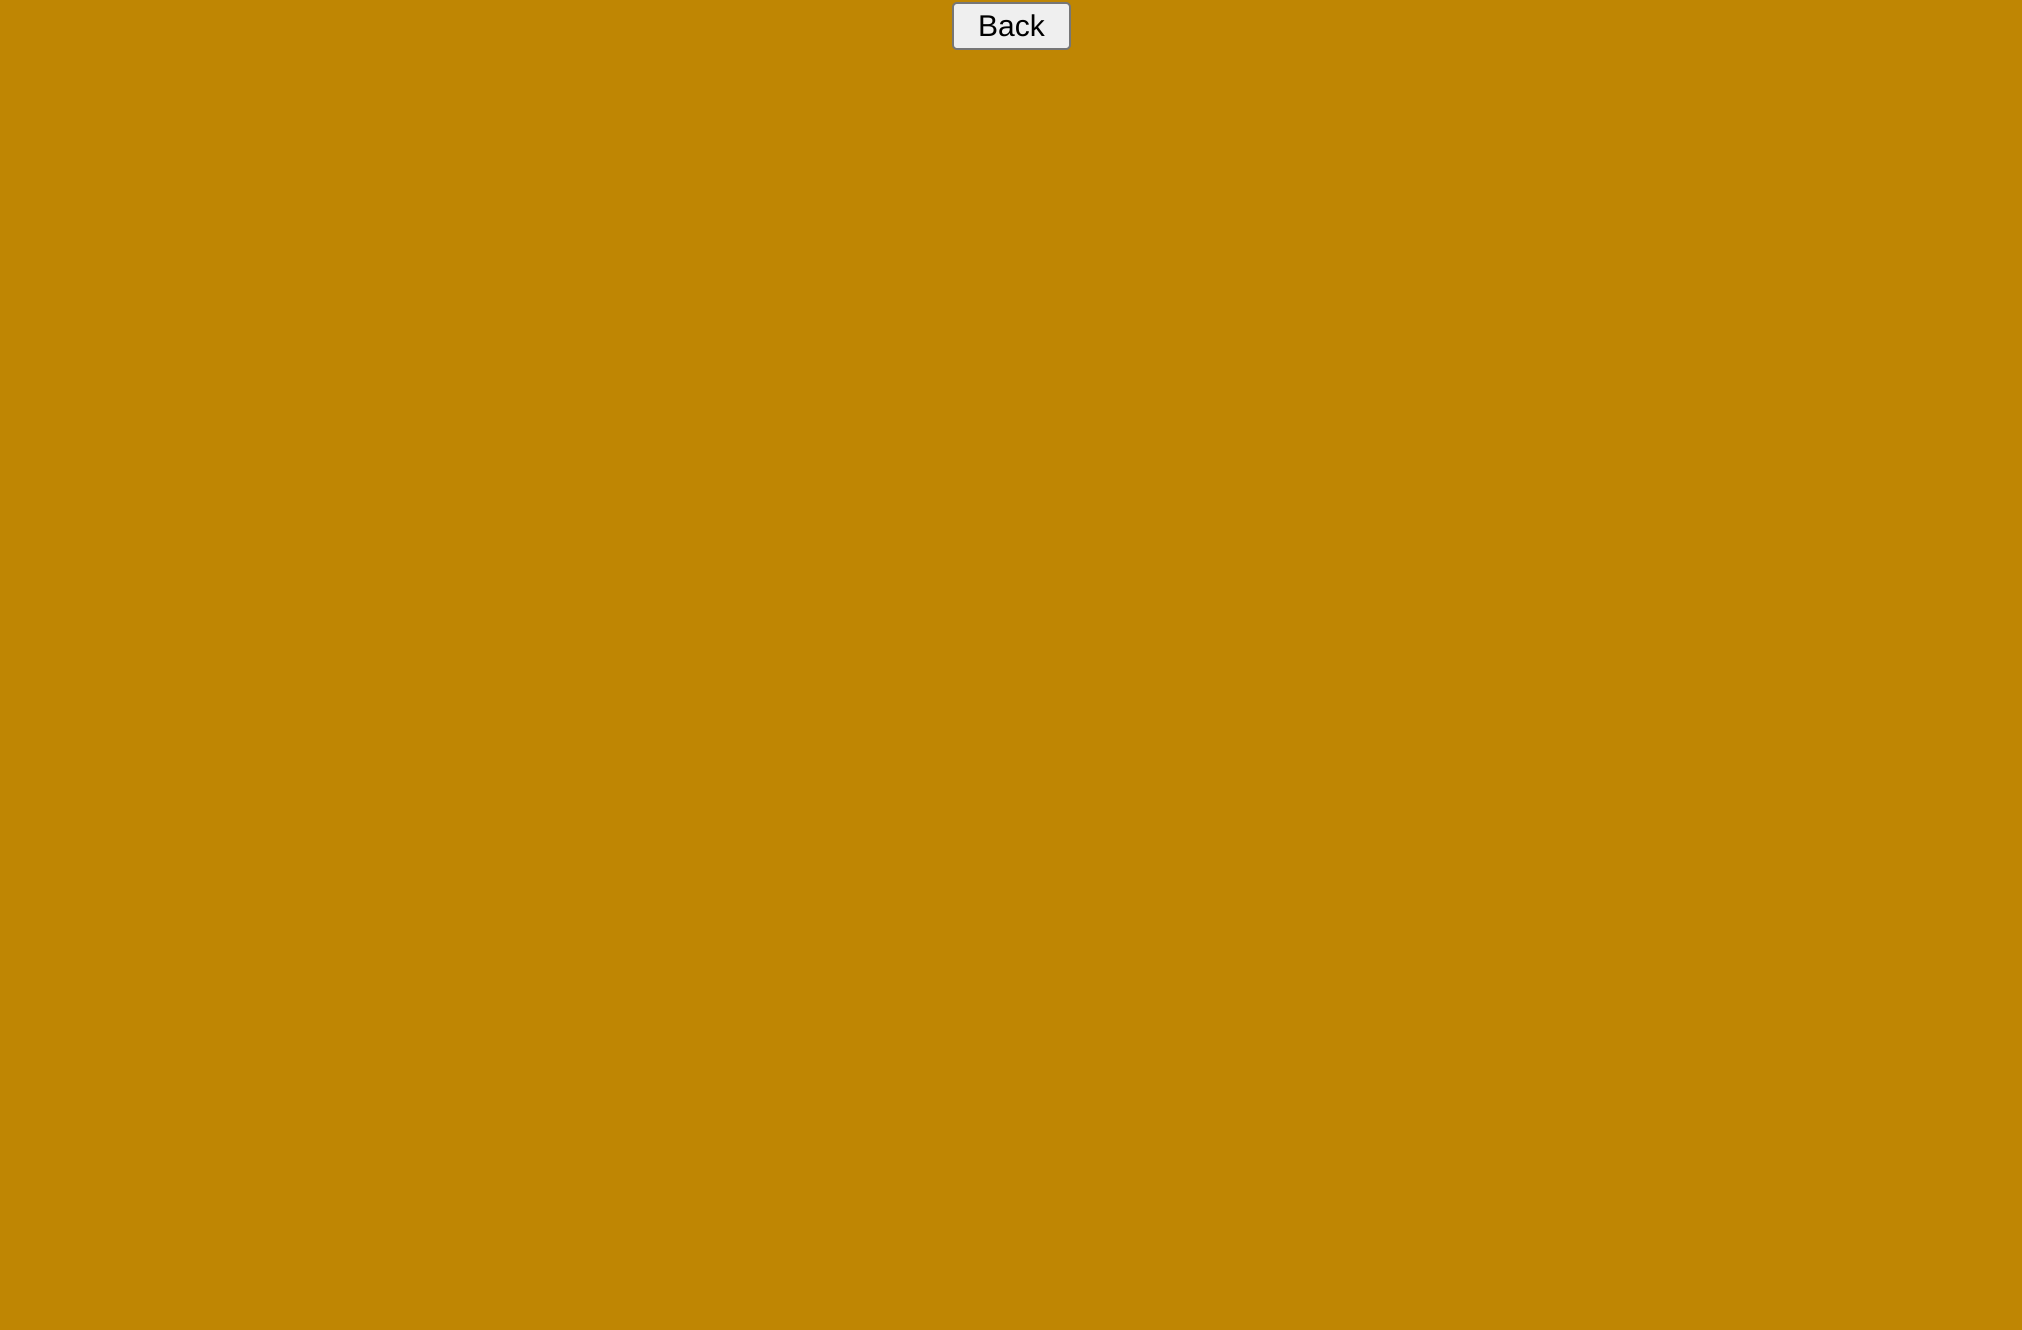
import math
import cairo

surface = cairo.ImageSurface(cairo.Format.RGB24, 2022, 1330)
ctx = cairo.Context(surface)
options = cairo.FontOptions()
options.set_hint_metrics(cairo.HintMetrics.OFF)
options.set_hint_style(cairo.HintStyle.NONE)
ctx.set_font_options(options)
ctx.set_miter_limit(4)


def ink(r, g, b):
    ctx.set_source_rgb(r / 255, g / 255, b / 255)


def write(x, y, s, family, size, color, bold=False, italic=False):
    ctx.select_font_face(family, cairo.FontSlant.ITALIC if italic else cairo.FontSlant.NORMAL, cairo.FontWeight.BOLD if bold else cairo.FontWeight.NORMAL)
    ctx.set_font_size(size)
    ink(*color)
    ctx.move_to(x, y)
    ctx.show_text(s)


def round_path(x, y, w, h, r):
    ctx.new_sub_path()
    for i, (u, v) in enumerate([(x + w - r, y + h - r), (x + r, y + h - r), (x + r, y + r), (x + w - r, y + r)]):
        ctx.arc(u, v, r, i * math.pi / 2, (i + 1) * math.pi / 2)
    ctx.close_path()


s1 = dict(family="Liberation Sans", size=30, color=(0, 0, 0))

ink(191, 134, 3)
ctx.paint()
ink(239, 239, 239)
round_path(953, 3, 117, 46, 4)
ctx.fill_preserve()
ink(118, 118, 118)
ctx.stroke()
write(978, 36, "Back", **s1)
surface.write_to_png("screenshot.png")
